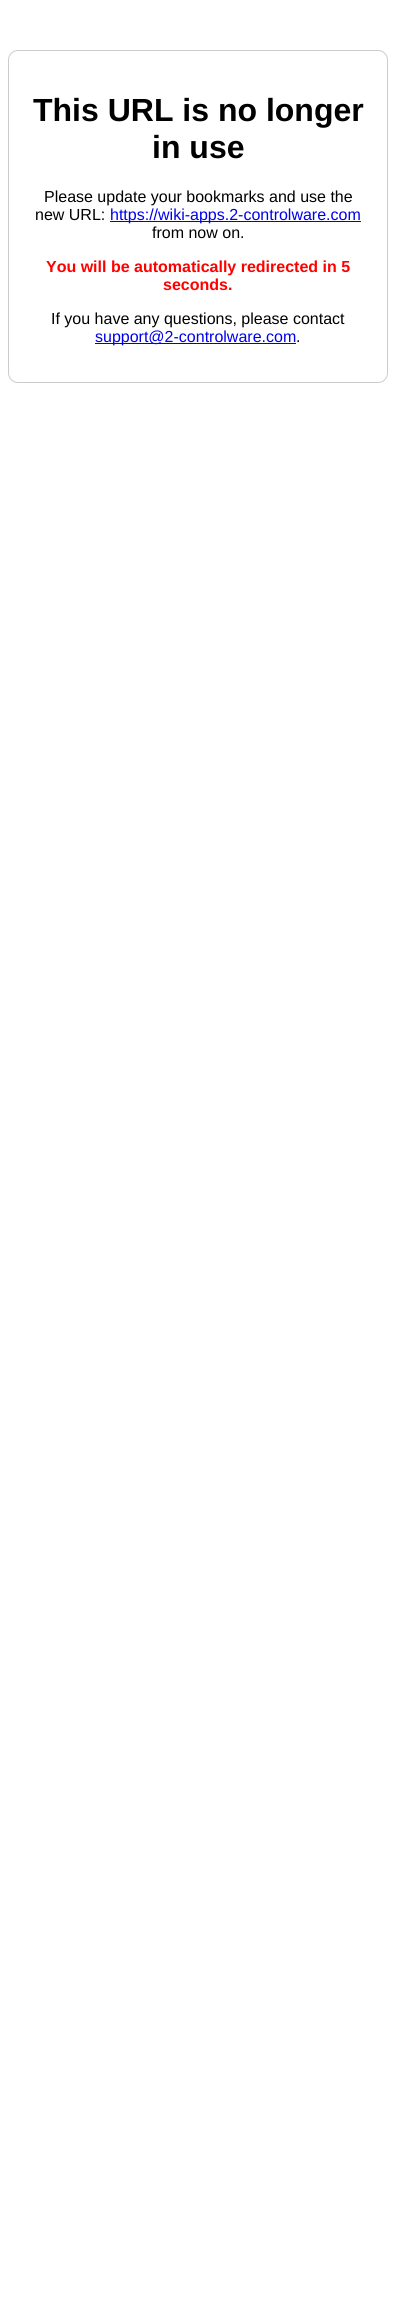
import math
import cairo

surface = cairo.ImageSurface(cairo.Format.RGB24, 396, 2318)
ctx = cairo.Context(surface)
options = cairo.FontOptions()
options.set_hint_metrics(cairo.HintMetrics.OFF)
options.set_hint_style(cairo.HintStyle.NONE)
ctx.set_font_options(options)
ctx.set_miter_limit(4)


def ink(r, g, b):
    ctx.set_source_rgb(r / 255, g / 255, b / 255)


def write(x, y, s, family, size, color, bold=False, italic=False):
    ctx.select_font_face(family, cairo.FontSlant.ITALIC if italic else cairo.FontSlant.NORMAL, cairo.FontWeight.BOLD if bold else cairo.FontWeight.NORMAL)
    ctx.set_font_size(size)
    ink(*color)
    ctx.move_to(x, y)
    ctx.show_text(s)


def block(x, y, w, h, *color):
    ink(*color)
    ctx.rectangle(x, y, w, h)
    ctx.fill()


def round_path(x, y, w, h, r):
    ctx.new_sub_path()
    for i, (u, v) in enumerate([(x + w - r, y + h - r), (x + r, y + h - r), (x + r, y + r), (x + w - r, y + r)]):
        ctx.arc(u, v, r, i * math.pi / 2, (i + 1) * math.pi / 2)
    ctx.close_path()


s1 = dict(family="Liberation Sans", size=32, color=(0, 0, 0), bold=True)
s2 = dict(family="Liberation Sans", size=16, color=(0, 0, 0))
s3 = dict(family="Liberation Sans", size=16, color=(0, 0, 238))
s4 = dict(family="Liberation Sans", size=16, color=(255, 0, 0), bold=True)

ink(255, 255, 255)
ctx.paint()
round_path(8.5, 50.5, 379, 332, 9.5)
ink(204, 204, 204)
ctx.set_line_width(1)
ctx.stroke()
write(33, 121, "This URL is no longer", **s1)
write(152, 158, "in use", **s1)
write(44, 202, "Please update your bookmarks and use the", **s2)
write(35, 220, "new URL:", **s2)
block(110, 221, 251, 1, 0, 0, 238)
write(110, 220, "https://wiki-apps.2-controlware.com", **s3)
write(152, 238, "from now on.", **s2)
write(46, 272, "You will be automatically redirected in 5", **s4)
write(163, 290, "seconds.", **s4)
write(51, 324, "If you have any questions, please contact", **s2)
block(95, 343, 201, 1, 0, 0, 238)
write(95, 342, "support@2-controlware.com", **s3)
write(296, 342, ".", **s2)
surface.write_to_png("screenshot.png")
